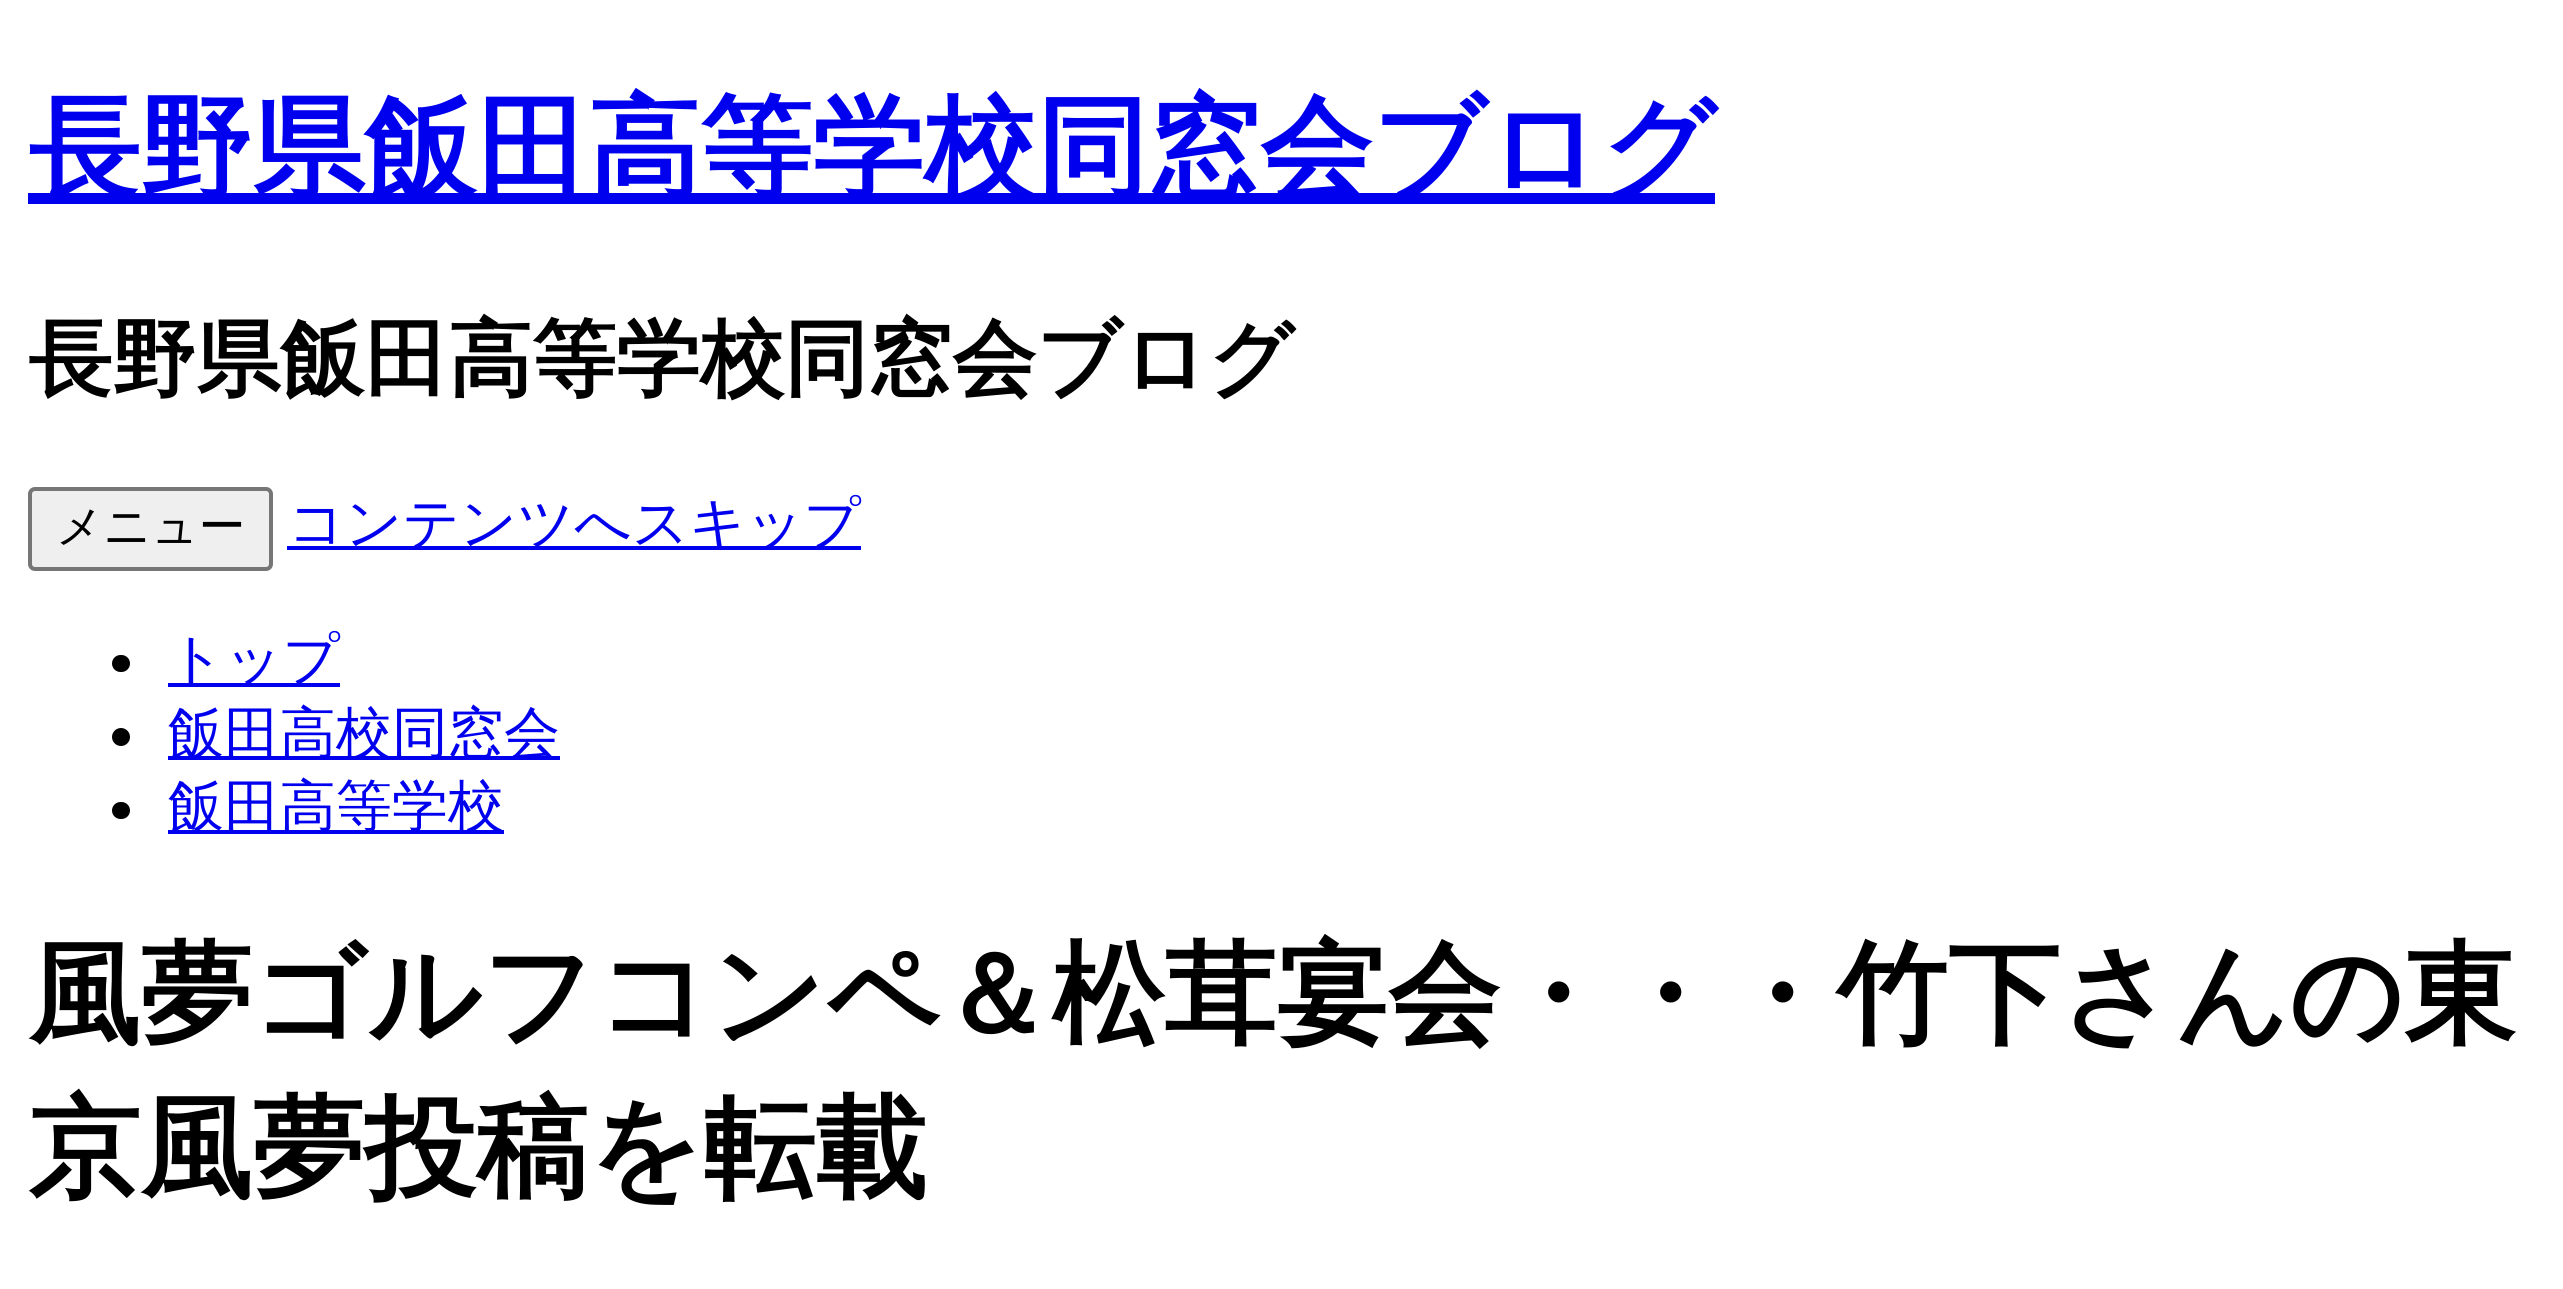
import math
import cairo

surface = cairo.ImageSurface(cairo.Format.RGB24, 2563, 1289)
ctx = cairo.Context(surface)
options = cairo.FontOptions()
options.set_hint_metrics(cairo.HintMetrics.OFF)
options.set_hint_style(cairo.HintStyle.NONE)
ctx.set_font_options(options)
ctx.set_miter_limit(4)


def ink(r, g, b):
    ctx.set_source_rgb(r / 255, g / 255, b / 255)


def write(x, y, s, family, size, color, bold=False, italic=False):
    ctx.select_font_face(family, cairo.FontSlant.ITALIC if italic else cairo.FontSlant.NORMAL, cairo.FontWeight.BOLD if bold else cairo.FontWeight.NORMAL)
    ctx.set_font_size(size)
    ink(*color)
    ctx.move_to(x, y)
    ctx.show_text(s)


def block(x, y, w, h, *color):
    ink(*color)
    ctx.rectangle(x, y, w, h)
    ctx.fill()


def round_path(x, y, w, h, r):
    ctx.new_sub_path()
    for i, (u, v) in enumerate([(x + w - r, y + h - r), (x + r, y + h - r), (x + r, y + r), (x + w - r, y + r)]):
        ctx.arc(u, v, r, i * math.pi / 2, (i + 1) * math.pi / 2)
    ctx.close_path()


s1 = dict(family="WenQuanYi Zen Hei", size=112, color=(0, 0, 238), bold=True)
s2 = dict(family="WenQuanYi Zen Hei", size=84, color=(0, 0, 0), bold=True)
s3 = dict(family="WenQuanYi Zen Hei Medium", size=46.5, color=(0, 0, 0))
s4 = dict(family="WenQuanYi Zen Hei Medium", size=56, color=(0, 0, 238))
s5 = dict(family="WenQuanYi Zen Hei", size=112, color=(0, 0, 0), bold=True)

ink(255, 255, 255)
ctx.paint()
block(28, 193, 1687, 11, 0, 0, 238)
write(28, 187, "長野県飯田高等学校同窓会ブログ", **s1)
write(28, 388, "長野県飯田高等学校同窓会ブログ", **s2)
ink(239, 239, 239)
round_path(30, 489, 241, 80, 5)
ctx.fill_preserve()
ink(118, 118, 118)
ctx.set_line_width(4)
ctx.stroke()
write(56, 542, "メニュー", **s3)
block(287, 546, 574, 4, 0, 0, 238)
write(288, 542, "コンテンツへスキップ", **s4)
ink(0, 0, 0)
round_path(112, 655, 18, 17, 8.5)
ctx.fill()
block(168, 683, 172, 4, 0, 0, 238)
write(168, 678, "トップ", **s4)
ink(0, 0, 0)
ctx.new_path()
ctx.arc(121, 737, 9, 0, 2 * math.pi)
ctx.fill()
block(168, 756, 392, 4, 0, 0, 238)
write(168, 752, "飯田高校同窓会", **s4)
ink(0, 0, 0)
round_path(112, 802, 18, 17, 8.5)
ctx.fill()
block(168, 830, 336, 4, 0, 0, 238)
write(168, 825, "飯田高等学校", **s4)
write(28, 1033, "風夢ゴルフコンペ＆松茸宴会・・・竹下さんの東", **s5)
write(28, 1187, "京風夢投稿を転載", **s5)
surface.write_to_png("screenshot.png")
